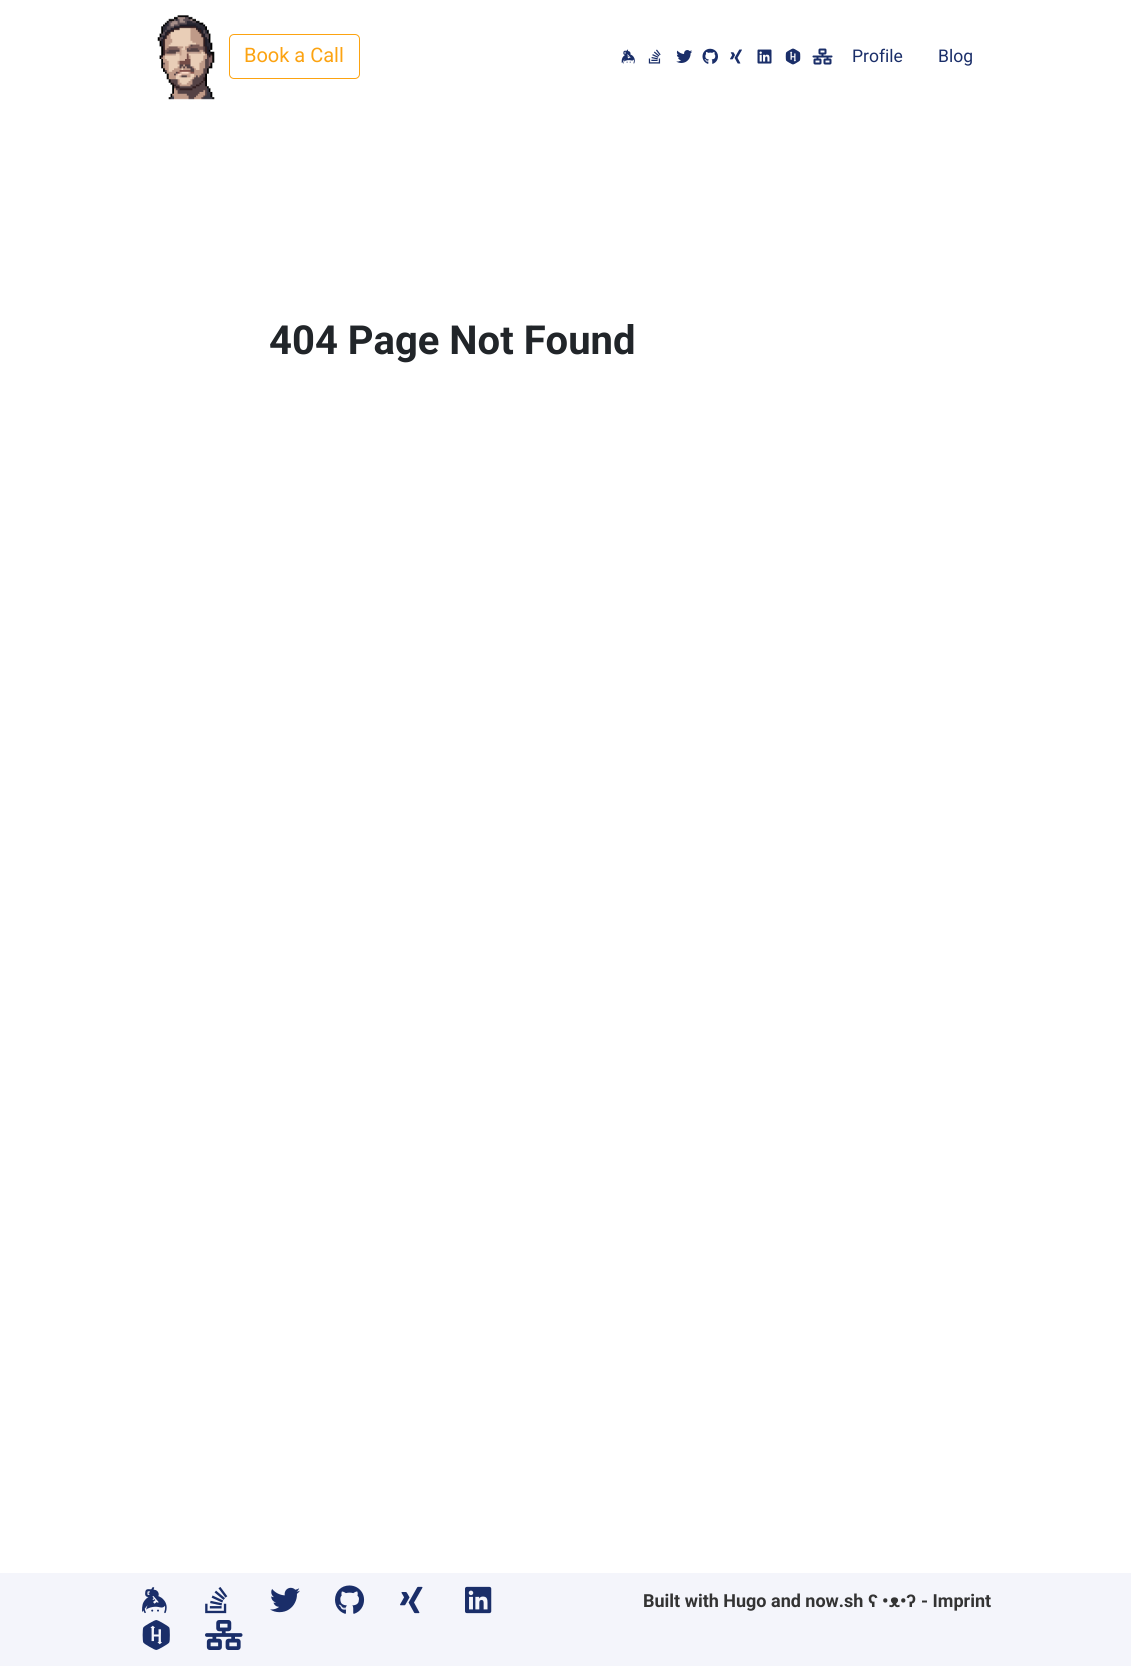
import math
import cairo

surface = cairo.ImageSurface(cairo.Format.RGB24, 1131, 1666)
ctx = cairo.Context(surface)
options = cairo.FontOptions()
options.set_hint_metrics(cairo.HintMetrics.OFF)
options.set_hint_style(cairo.HintStyle.NONE)
ctx.set_font_options(options)
ctx.set_miter_limit(4)


def ink(r, g, b):
    ctx.set_source_rgb(r / 255, g / 255, b / 255)


def write(x, y, s, family, size, color, bold=False, italic=False):
    ctx.select_font_face(family, cairo.FontSlant.ITALIC if italic else cairo.FontSlant.NORMAL, cairo.FontWeight.BOLD if bold else cairo.FontWeight.NORMAL)
    ctx.set_font_size(size)
    ink(*color)
    ctx.move_to(x, y)
    ctx.show_text(s)


def block(x, y, w, h, *color):
    ink(*color)
    ctx.rectangle(x, y, w, h)
    ctx.fill()


def round_path(x, y, w, h, r):
    ctx.new_sub_path()
    for i, (u, v) in enumerate([(x + w - r, y + h - r), (x + r, y + h - r), (x + r, y + r), (x + w - r, y + r)]):
        ctx.arc(u, v, r, i * math.pi / 2, (i + 1) * math.pi / 2)
    ctx.close_path()


def paste(path, x, y, w, h):
    ctx.save()
    ctx.set_source_surface(cairo.ImageSurface.create_from_png(path), x, y)
    ctx.rectangle(x, y, w, h)
    ctx.fill()
    ctx.restore()


s1 = dict(family="Roboto", size=20, color=(252, 163, 17))
s2 = dict(family="Roboto", size=17.5, color=(26, 46, 105))
s3 = dict(family="Roboto", size=40, color=(33, 37, 41), bold=True)
s4 = dict(family="Roboto", size=18, color=(51, 51, 51), bold=True)
s5 = dict(family="Liberation Sans", size=18, color=(51, 51, 51), bold=True)

ink(255, 255, 255)
ctx.paint()
paste("pic1.png", 157, 15, 58, 85)
round_path(229.5, 34.5, 130, 44, 4.5)
ink(252, 163, 17)
ctx.set_line_width(1)
ctx.stroke()
write(244, 62, "Book a Call", **s1)
paste("pic2.png", 621, 49, 14, 15)
paste("pic3.png", 648, 49, 13, 15)
paste("pic4.png", 676, 50, 17, 13)
paste("pic5.png", 702, 48, 16, 16)
paste("pic6.png", 730, 49, 12, 15)
paste("pic7.png", 757, 49, 15, 15)
paste("pic8.png", 785, 48, 16, 17)
paste("pic9.png", 812, 48, 21, 17)
write(852, 62, "Profile", **s2)
write(938, 62, "Blog", **s2)
write(269, 354, "404 Page Not Found", **s3)
block(0, 1573, 1131, 93, 244, 245, 251)
paste("pic10.png", 142, 1587, 25, 27)
paste("pic11.png", 205, 1587, 23, 27)
paste("pic12.png", 270, 1587, 30, 26)
paste("pic13.png", 335, 1585, 30, 29)
paste("pic14.png", 400, 1586, 23, 28)
paste("pic15.png", 465, 1586, 27, 28)
paste("pic16.png", 142, 1620, 28, 30)
paste("pic17.png", 205, 1620, 38, 30)
write(643, 1607, "Built with Hugo and now.sh", **s4)
write(868, 1607, "ʕ", **s5)
write(882, 1607, "•", **s4)
write(889, 1607, "ᴥ", **s5)
write(900, 1607, "•", **s4)
write(906, 1607, "ʔ", **s5)
write(921, 1607, "- Imprint", **s4)
surface.write_to_png("screenshot.png")
